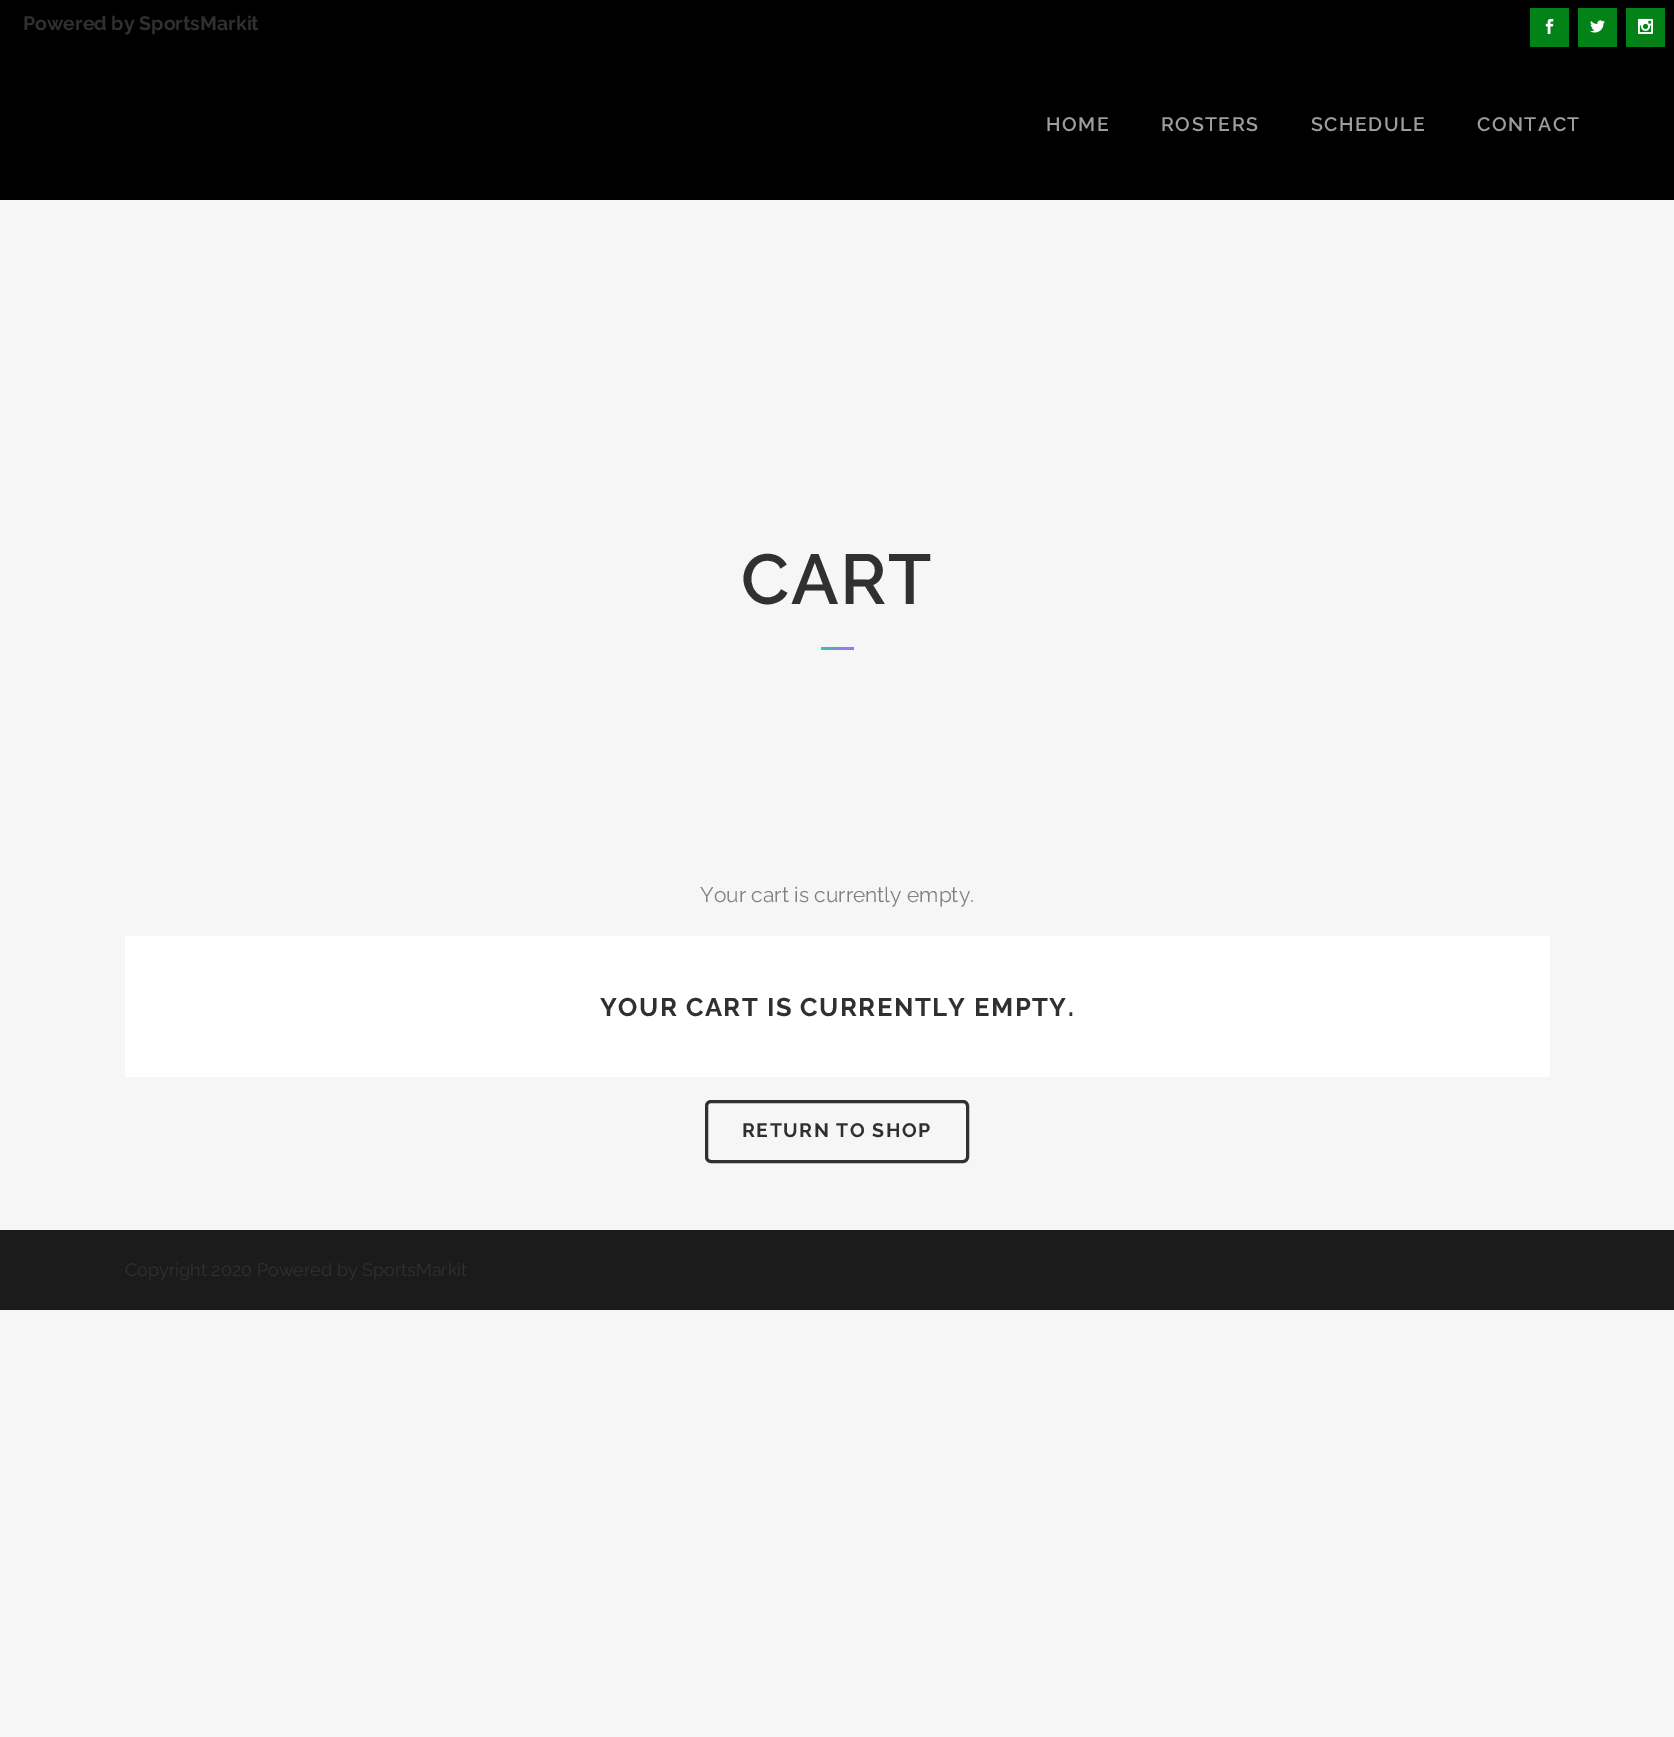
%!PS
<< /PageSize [1674 1737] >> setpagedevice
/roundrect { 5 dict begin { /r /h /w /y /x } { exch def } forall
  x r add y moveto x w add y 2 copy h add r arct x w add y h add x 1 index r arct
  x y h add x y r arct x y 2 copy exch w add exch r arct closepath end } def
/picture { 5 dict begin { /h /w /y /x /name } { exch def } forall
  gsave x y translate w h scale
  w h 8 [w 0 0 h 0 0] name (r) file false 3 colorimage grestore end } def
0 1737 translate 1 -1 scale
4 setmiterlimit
0.965 setgray
0 0 1674 1737 rectfill
0 setgray
0 0 1674 200 rectfill
/Raleway-Bold [19.5 0 0 -19.5 0 0] selectfont
0.188 setgray
23 30 moveto (Powered by SportsMarkit) show
0.012 0.514 0.09 setrgbcolor
1530 8 39 39 1.5 roundrect fill
(img1.rgb) 1545 18 9 16 picture
1578 8 39 39 1.5 roundrect fill
(img2.rgb) 1590 20 15 13 picture
1626 8 39 39 1.5 roundrect fill
(img3.rgb) 1638 18 15 16 picture
/Raleway-SemiBold [19.5 0 0 -19.5 0 0] selectfont
0.616 setgray
1046 131 moveto 1.5 0 (HOME) ashow
1161 131 moveto 1.5 0 (ROSTERS) ashow
1311 131 moveto 1.5 0 (SCHEDULE) ashow
1477 131 moveto 1.5 0 (CONTACT) ashow
/Raleway-SemiBold [70.5 0 0 -70.5 0 0] selectfont
0.188 setgray
741 604 moveto 1.5 0 (CART) ashow
gsave newpath 821 647 moveto 854 647 lineto 854 650 lineto 821 650 lineto closepath clip newpath
<< /ShadingType 2 /ColorSpace /DeviceRGB /Coords [821 648 854 648] /Extend [true true] /Function << /FunctionType 2 /Domain [0 1] /C0 [0.192 0.784 0.635] /C1 [0.682 0.4 0.992] /N 1 >> >> shfill grestore
/Raleway-Regular [21 0 0 -21 0 0] selectfont
0.506 setgray
700 902 moveto (Your cart is currently empty.) show
1 setgray
125 936 1425 141 rectfill
/Raleway-Bold [25.5 0 0 -25.5 0 0] selectfont
0.188 setgray
600 1016 moveto 1.5 0 (YOUR CART IS CURRENTLY EMPTY.) ashow
3 setlinewidth
706.5 1101.5 261 60 4.5 roundrect stroke
/Raleway-Bold [19.5 0 0 -19.5 0 0] selectfont
742 1137 moveto 1.5 0 (RETURN TO SHOP) ashow
0.106 setgray
0 1230 1674 80 rectfill
/Raleway-Regular [18 0 0 -18 0 0] selectfont
0.188 setgray
125 1276 moveto (Copyright 2020 Powered by SportsMarkit) show
showpage
